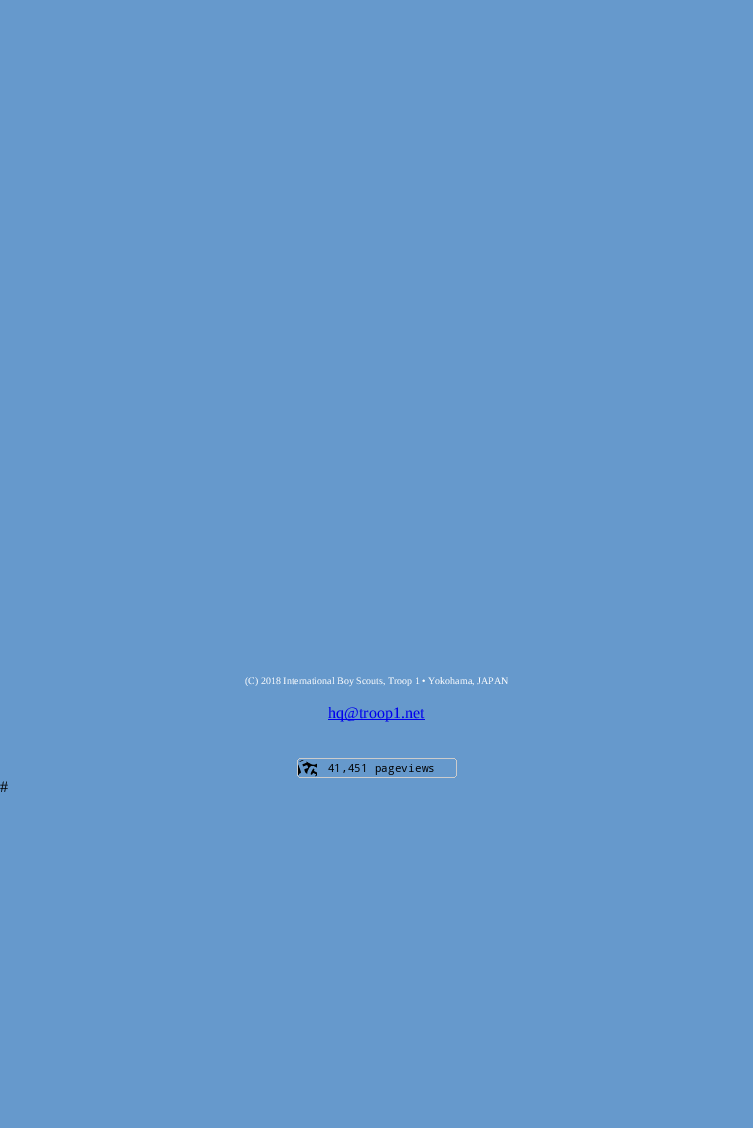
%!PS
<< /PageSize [753 1128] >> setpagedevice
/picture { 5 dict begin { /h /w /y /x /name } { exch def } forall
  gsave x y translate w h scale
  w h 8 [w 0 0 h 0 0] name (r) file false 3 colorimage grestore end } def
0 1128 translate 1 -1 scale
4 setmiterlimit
0.4 0.6 0.8 setrgbcolor
0 0 753 1128 rectfill
/LiberationSerif-Regular [10 0 0 -10 0 0] selectfont
1 setgray
245 684 moveto (\(C\) 2018 International Boy Scouts, Troop 1 • Yokohama, JAPAN) show
0 0 0.933 setrgbcolor
328 719 97 1 rectfill
/LiberationSerif-Regular [16 0 0 -16 0 0] selectfont
328 718 moveto (hq@troop1.net) show
(img1.rgb) 297 758 160 20 picture
0 setgray
0 792 moveto (#) show
showpage
